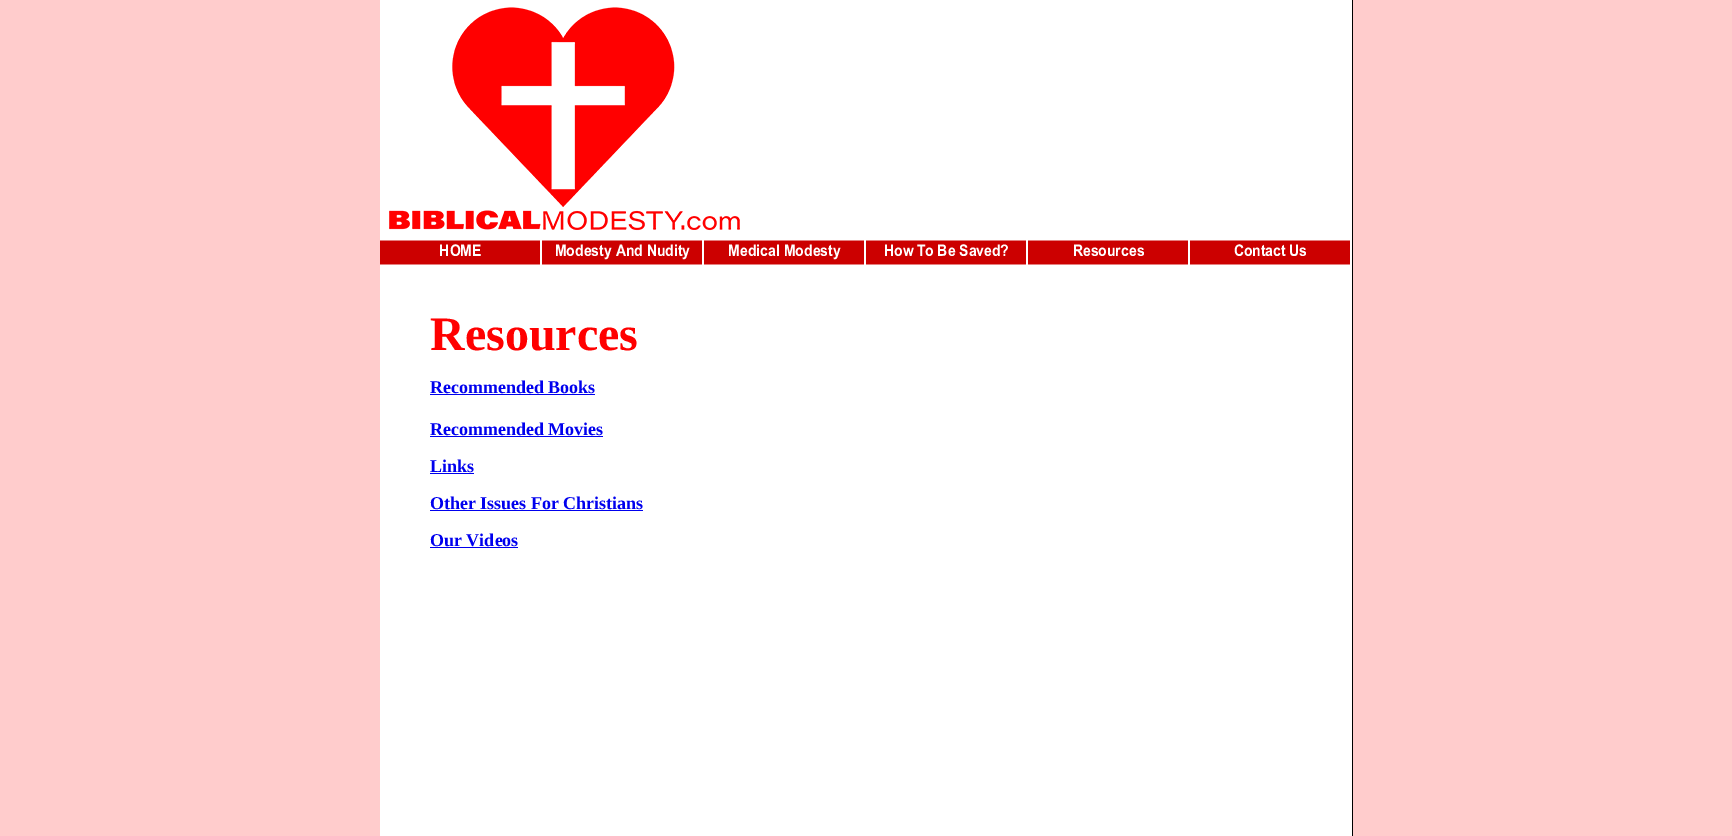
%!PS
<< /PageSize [1732 836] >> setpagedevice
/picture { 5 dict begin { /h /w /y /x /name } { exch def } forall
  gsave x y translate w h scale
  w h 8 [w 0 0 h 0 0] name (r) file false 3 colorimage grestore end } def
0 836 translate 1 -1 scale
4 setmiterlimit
1 0.8 0.8 setrgbcolor
0 0 1732 836 rectfill
1 setgray
380 0 972 836 rectfill
0 setgray
1352 0 1 836 rectfill
(img1.rgb) 389 7 351 224 picture
(img2.rgb) 380 240 160 24 picture
(img3.rgb) 542 240 160 24 picture
(img4.rgb) 704 240 160 24 picture
(img5.rgb) 866 240 160 24 picture
(img6.rgb) 1028 240 160 24 picture
(img7.rgb) 1190 240 160 24 picture
0.902 0.502 0.502 setrgbcolor
380 264 160 1 rectfill
542 264 160 1 rectfill
704 264 160 1 rectfill
866 264 160 1 rectfill
1028 264 160 1 rectfill
1190 264 160 1 rectfill
/LiberationSerif-Bold [48 0 0 -48 0 0] selectfont
1 0 0 setrgbcolor
430 350 moveto (Resources) show
/LiberationSerif-Bold [18 0 0 -18 0 0] selectfont
0 0 0.933 setrgbcolor
430 393 moveto (Recommended Books) show
430 394 165 1 rectfill
430 435 moveto (Recommended Movies) show
430 436 173 1 rectfill
430 472 moveto (Links) show
430 473 44 1 rectfill
430 509 moveto (Other Issues For Christians) show
430 510 213 1 rectfill
430 546 moveto (Our Videos) show
430 547 88 1 rectfill
showpage
